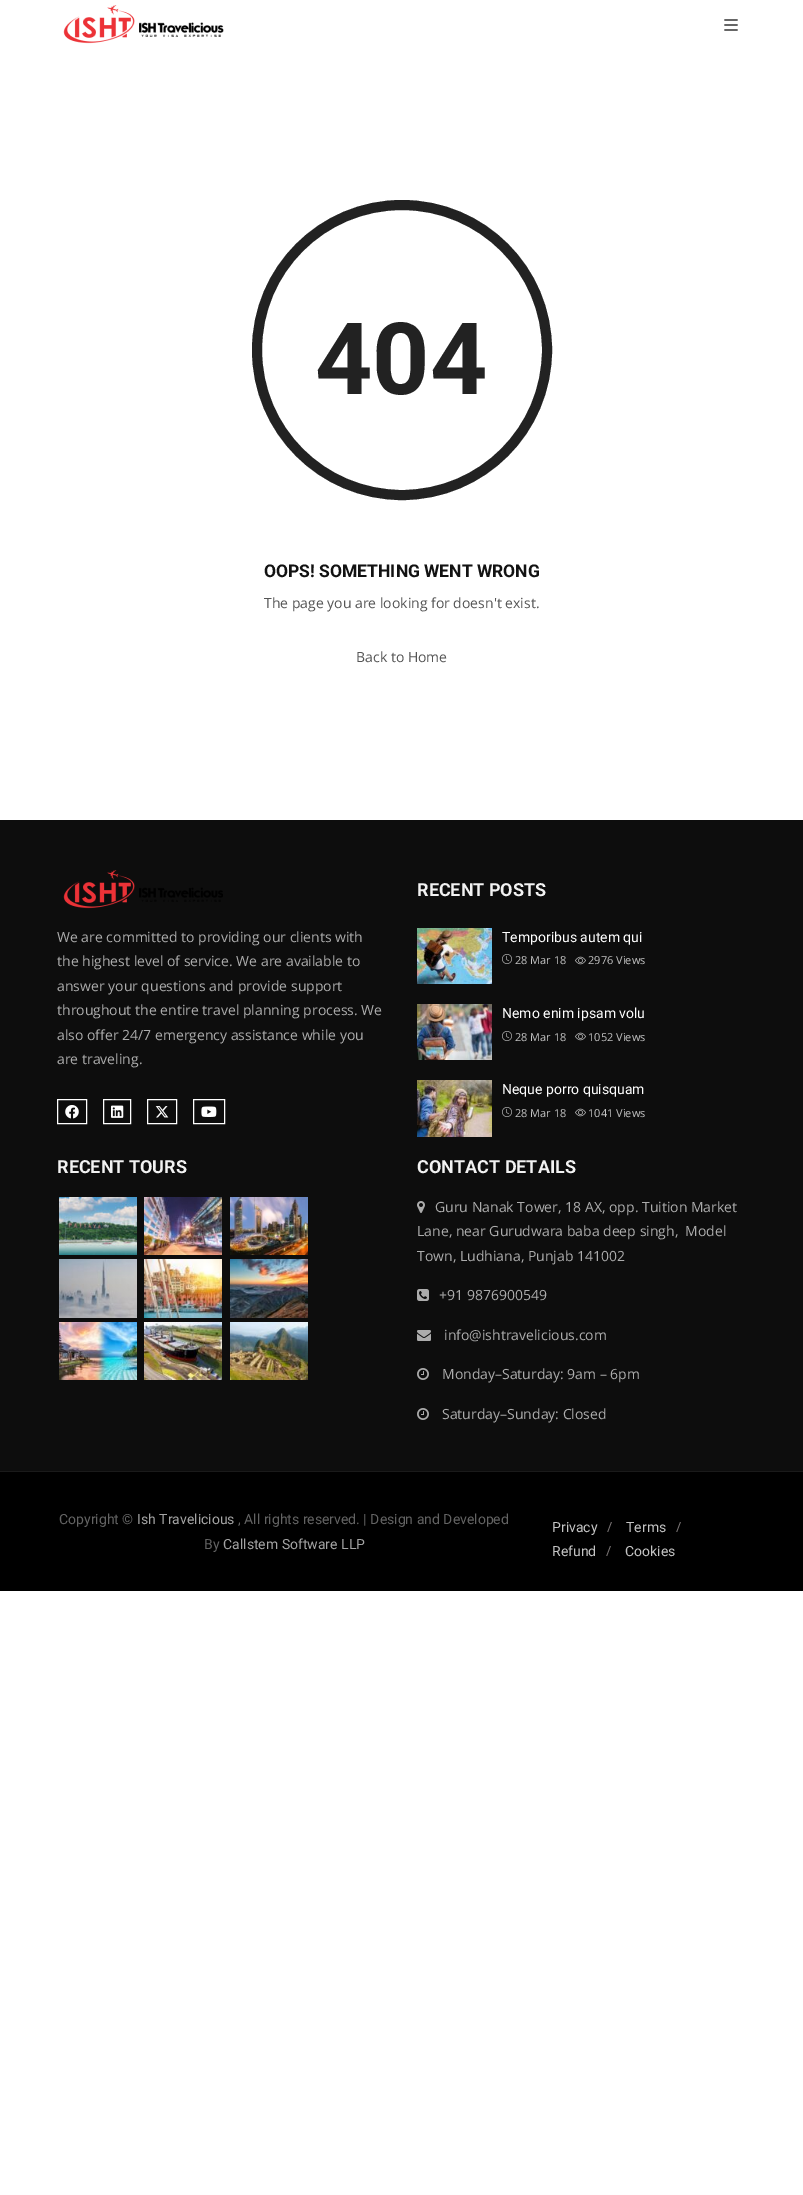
%!PS
<< /PageSize [803 2195] >> setpagedevice
/picture { 5 dict begin { /h /w /y /x /name } { exch def } forall
  gsave x y translate w h scale
  w h 8 [w 0 0 h 0 0] name (r) file false 3 colorimage grestore end } def
0 2195 translate 1 -1 scale
4 setmiterlimit
1 setgray
0 0 803 2195 rectfill
(img1.rgb) 63 5 161 39 picture
(img2.rgb) 724 19 14 12 picture
0.133 setgray
10 setlinewidth
newpath 402 350 145 0 360 arc closepath stroke
/Roboto-Bold [100 0 0 -100 0 0] selectfont
315 394 moveto (404) show
/Roboto-Bold [17.5 0 0 -17.5 0 0] selectfont
0.071 setgray
264 577 moveto (OOPS! SOMETHING WENT WRONG) show
/OpenSans-Regular [14 0 0 -14 0 0] selectfont
0.333 setgray
264 608 moveto (The page you are looking for doesn't exist.) show
356 662 moveto (Back to Home) show
0.051 setgray
0 820 803 651 rectfill
(img3.rgb) 63 870 160 39 picture
0.675 setgray
57 942 moveto (We are committed to providing our clients with) show
57 966 moveto (the highest level of service. We are available to) show
57 991 moveto (answer your questions and provide support) show
57 1015 moveto (throughout the entire travel planning process. We) show
57 1040 moveto (also offer 24/7 emergency assistance while you) show
57 1064 moveto (are traveling.) show
1 setgray
1 setlinewidth
57.5 1099.5 29 24 rectstroke
(img4.rgb) 65 1105 14 14 picture
103.5 1099.5 27 24 rectstroke
(img5.rgb) 111 1105 13 13 picture
147.5 1099.5 29 24 rectstroke
(img6.rgb) 155 1106 14 12 picture
193.5 1099.5 31 24 rectstroke
(img7.rgb) 201 1106 16 11 picture
/Roboto-Bold [18 0 0 -18 0 0] selectfont
0.949 setgray
417 896 moveto (RECENT POSTS) show
(img8.rgb) 417 928 75 56 picture
/Roboto-Regular [14 0 0 -14 0 0] selectfont
1 setgray
502 942 moveto (Temporibus autem qui) show
(img9.rgb) 502 954 10 10 picture
/OpenSans-Regular [11 0 0 -11 0 0] selectfont
0.769 setgray
515 964 moveto (28 Mar 18) show
(img10.rgb) 575 956 11 9 picture
588 964 moveto (2976 Views) show
(img11.rgb) 417 1004 75 56 picture
/Roboto-Regular [14 0 0 -14 0 0] selectfont
1 setgray
502 1018 moveto (Nemo enim ipsam volu) show
(img9.rgb) 502 1031 10 10 picture
/OpenSans-Regular [11 0 0 -11 0 0] selectfont
0.769 setgray
515 1041 moveto (28 Mar 18) show
(img10.rgb) 575 1032 11 9 picture
588 1041 moveto (1052 Views) show
(img12.rgb) 417 1080 75 57 picture
/Roboto-Regular [14 0 0 -14 0 0] selectfont
1 setgray
502 1094 moveto (Neque porro quisquam) show
(img9.rgb) 502 1107 10 10 picture
/OpenSans-Regular [11 0 0 -11 0 0] selectfont
0.769 setgray
515 1117 moveto (28 Mar 18) show
(img10.rgb) 575 1108 11 9 picture
588 1117 moveto (1041 Views) show
/Roboto-Bold [18 0 0 -18 0 0] selectfont
0.949 setgray
57 1173 moveto (RECENT TOURS) show
(img13.rgb) 59 1197 78 58 picture
(img14.rgb) 144 1197 78 58 picture
(img15.rgb) 230 1197 78 58 picture
(img16.rgb) 59 1259 78 59 picture
(img17.rgb) 144 1259 78 59 picture
(img18.rgb) 230 1259 78 59 picture
(img19.rgb) 59 1322 78 58 picture
(img20.rgb) 144 1322 78 58 picture
(img21.rgb) 230 1322 78 58 picture
417 1173 moveto (CONTACT DETAILS) show
(img22.rgb) 417 1201 8 12 picture
/OpenSans-Regular [14 0 0 -14 0 0] selectfont
0.675 setgray
435 1212 moveto (Guru Nanak Tower, 18 AX, opp. Tuition Market) show
417 1236 moveto (Lane, near Gurudwara baba deep singh,  Model) show
417 1261 moveto (Town, Ludhiana, Punjab 141002) show
(img23.rgb) 417 1289 12 12 picture
439 1300 moveto (+91 9876900549) show
(img24.rgb) 417 1330 14 11 picture
444 1340 moveto (info@ishtravelicious.com) show
(img25.rgb) 417 1368 12 12 picture
442 1379 moveto (Monday–Saturday: 9am – 6pm) show
(img25.rgb) 417 1408 12 12 picture
442 1419 moveto (Saturday–Sunday: Closed) show
0 setgray
0 1472 803 119 rectfill
0.102 setgray
0 1471 803 1 rectfill
/Roboto-Regular [14 0 0 -14 0 0] selectfont
0.388 setgray
59 1524 moveto (Copyright ©) show
0.643 setgray
137 1524 moveto (Ish Travelicious) show
0.388 setgray
238 1524 moveto (, All rights reserved. | Design and Developed) show
204 1549 moveto (By) show
0.643 setgray
223 1549 moveto (Callstem Software LLP) show
0.769 setgray
552 1532 moveto (Privacy) show
/OpenSans-Regular [14 0 0 -14 0 0] selectfont
0.467 0.447 0.447 setrgbcolor
607 1532 moveto (/) show
/Roboto-Regular [14 0 0 -14 0 0] selectfont
0.769 setgray
626 1532 moveto (Terms) show
/OpenSans-Regular [14 0 0 -14 0 0] selectfont
0.467 0.447 0.447 setrgbcolor
676 1532 moveto (/) show
/Roboto-Regular [14 0 0 -14 0 0] selectfont
0.769 setgray
552 1556 moveto (Refund) show
/OpenSans-Regular [14 0 0 -14 0 0] selectfont
0.467 0.447 0.447 setrgbcolor
606 1556 moveto (/) show
/Roboto-Regular [14 0 0 -14 0 0] selectfont
0.769 setgray
625 1556 moveto (Cookies) show
showpage
